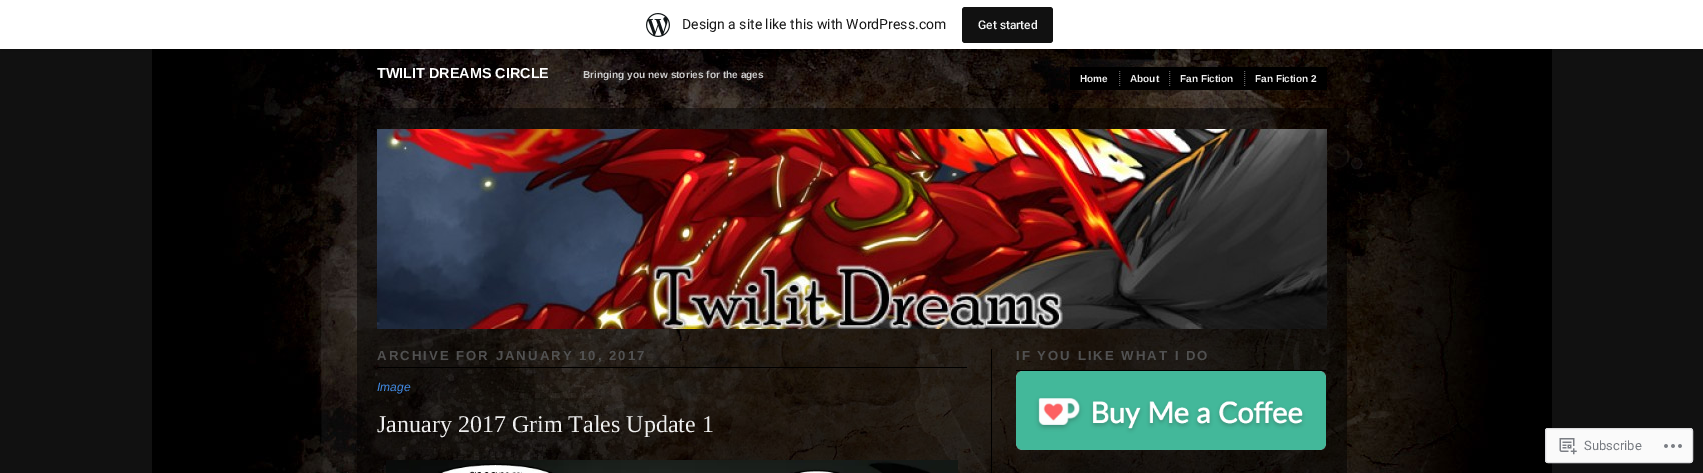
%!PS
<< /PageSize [1703 473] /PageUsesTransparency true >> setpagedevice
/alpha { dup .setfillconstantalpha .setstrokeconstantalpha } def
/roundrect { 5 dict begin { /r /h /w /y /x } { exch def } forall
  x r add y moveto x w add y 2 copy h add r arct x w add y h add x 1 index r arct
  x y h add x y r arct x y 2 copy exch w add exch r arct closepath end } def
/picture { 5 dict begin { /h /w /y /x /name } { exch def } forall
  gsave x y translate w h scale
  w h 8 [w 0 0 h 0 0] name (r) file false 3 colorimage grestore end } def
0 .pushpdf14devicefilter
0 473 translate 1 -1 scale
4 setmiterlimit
0.067 setgray
0 0 1703 473 rectfill
(img1.rgb) 152 49 1400 424 picture
0.5 alpha
0 setgray
357 108 990 365 rectfill
0.08 alpha
newpath 1 49 moveto 1 52 lineto 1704 52 lineto 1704 3 lineto 1703 3 lineto 1703 49 lineto closepath fill
1 alpha
1 setgray
0 0 1703 49 rectfill
(img2.rgb) 646 13 24 24 picture
/Roboto-Regular [14 0 0 -14 0 0] selectfont
0.09 setgray
682 29 moveto (Design a site like this with WordPress.com) show
0.067 setgray
962 7 91 36 3 roundrect fill
/Roboto-Medium [12 0 0 -12 0 0] selectfont
0.965 0.969 0.969 setrgbcolor
978 29 moveto (Get started) show
(img3.rgb) 377 129 950 200 picture
0 setgray
991 349 1 124 rectfill
377 367 590 1 rectfill
/LiberationSans-Bold [13.2 0 0 -13.2 0 0] selectfont
0.318 setgray
377 360 moveto 2 0 (ARCHIVE FOR JANUARY 10, 2017) ashow
/LiberationSans-Italic [12 0 0 -12 0 0] selectfont
0.259 0.549 0.906 setrgbcolor
377 391 moveto (Image) show
/LiberationSerif-Regular [24 0 0 -24 0 0] selectfont
0.933 setgray
377 432 moveto (January 2017 Grim Tales Update 1) show
(img4.rgb) 386 460 572 13 picture
0 setgray
1016 370 310 1 rectfill
/LiberationSans-Bold [13.2 0 0 -13.2 0 0] selectfont
0.318 setgray
1016 360 moveto 2 0 (IF YOU LIKE WHAT I DO) ashow
(img5.rgb) 1016 371 310 79 picture
0.98 alpha
1 setgray
1545 428 148 35 3 roundrect fill
0.863 0.863 0.871 setrgbcolor
1545.5 428.5 147 34 2.5 roundrect stroke
1 alpha
(img6.rgb) 1559 438 18 17 picture
/Roboto-Regular [13 0 0 -13 0 0] selectfont
0.463 0.478 0.502 setrgbcolor
1584 450 moveto (Subscribe) show
(img7.rgb) 1664 444 18 4 picture
/LiberationSans-Bold [14.4 0 0 -14.4 0 0] selectfont
1 setgray
377 78 moveto (TWILIT DREAMS CIRCLE) show
/LiberationSans-Bold [10.1 0 0 -10.1 0 0] selectfont
0.8 setgray
583 78 moveto (Bringing you new stories for the ages) show
0 setgray
1070 67 257 23 rectfill
0.4 setgray
[1 1] 0 setdash
newpath 1119.5 71 moveto 1119.5 86 lineto stroke
/LiberationSans-Bold [10 0 0 -10 0 0] selectfont
0.933 setgray
1080 82 moveto (Home) show
0.4 setgray
newpath 1169.5 71 moveto 1169.5 86 lineto stroke
0.933 setgray
1130 82 moveto (About) show
0.4 setgray
newpath 1244.5 71 moveto 1244.5 86 lineto stroke
0.933 setgray
1180 82 moveto (Fan Fiction) show
1255 82 moveto (Fan Fiction 2) show
.poppdf14devicefilter showpage
